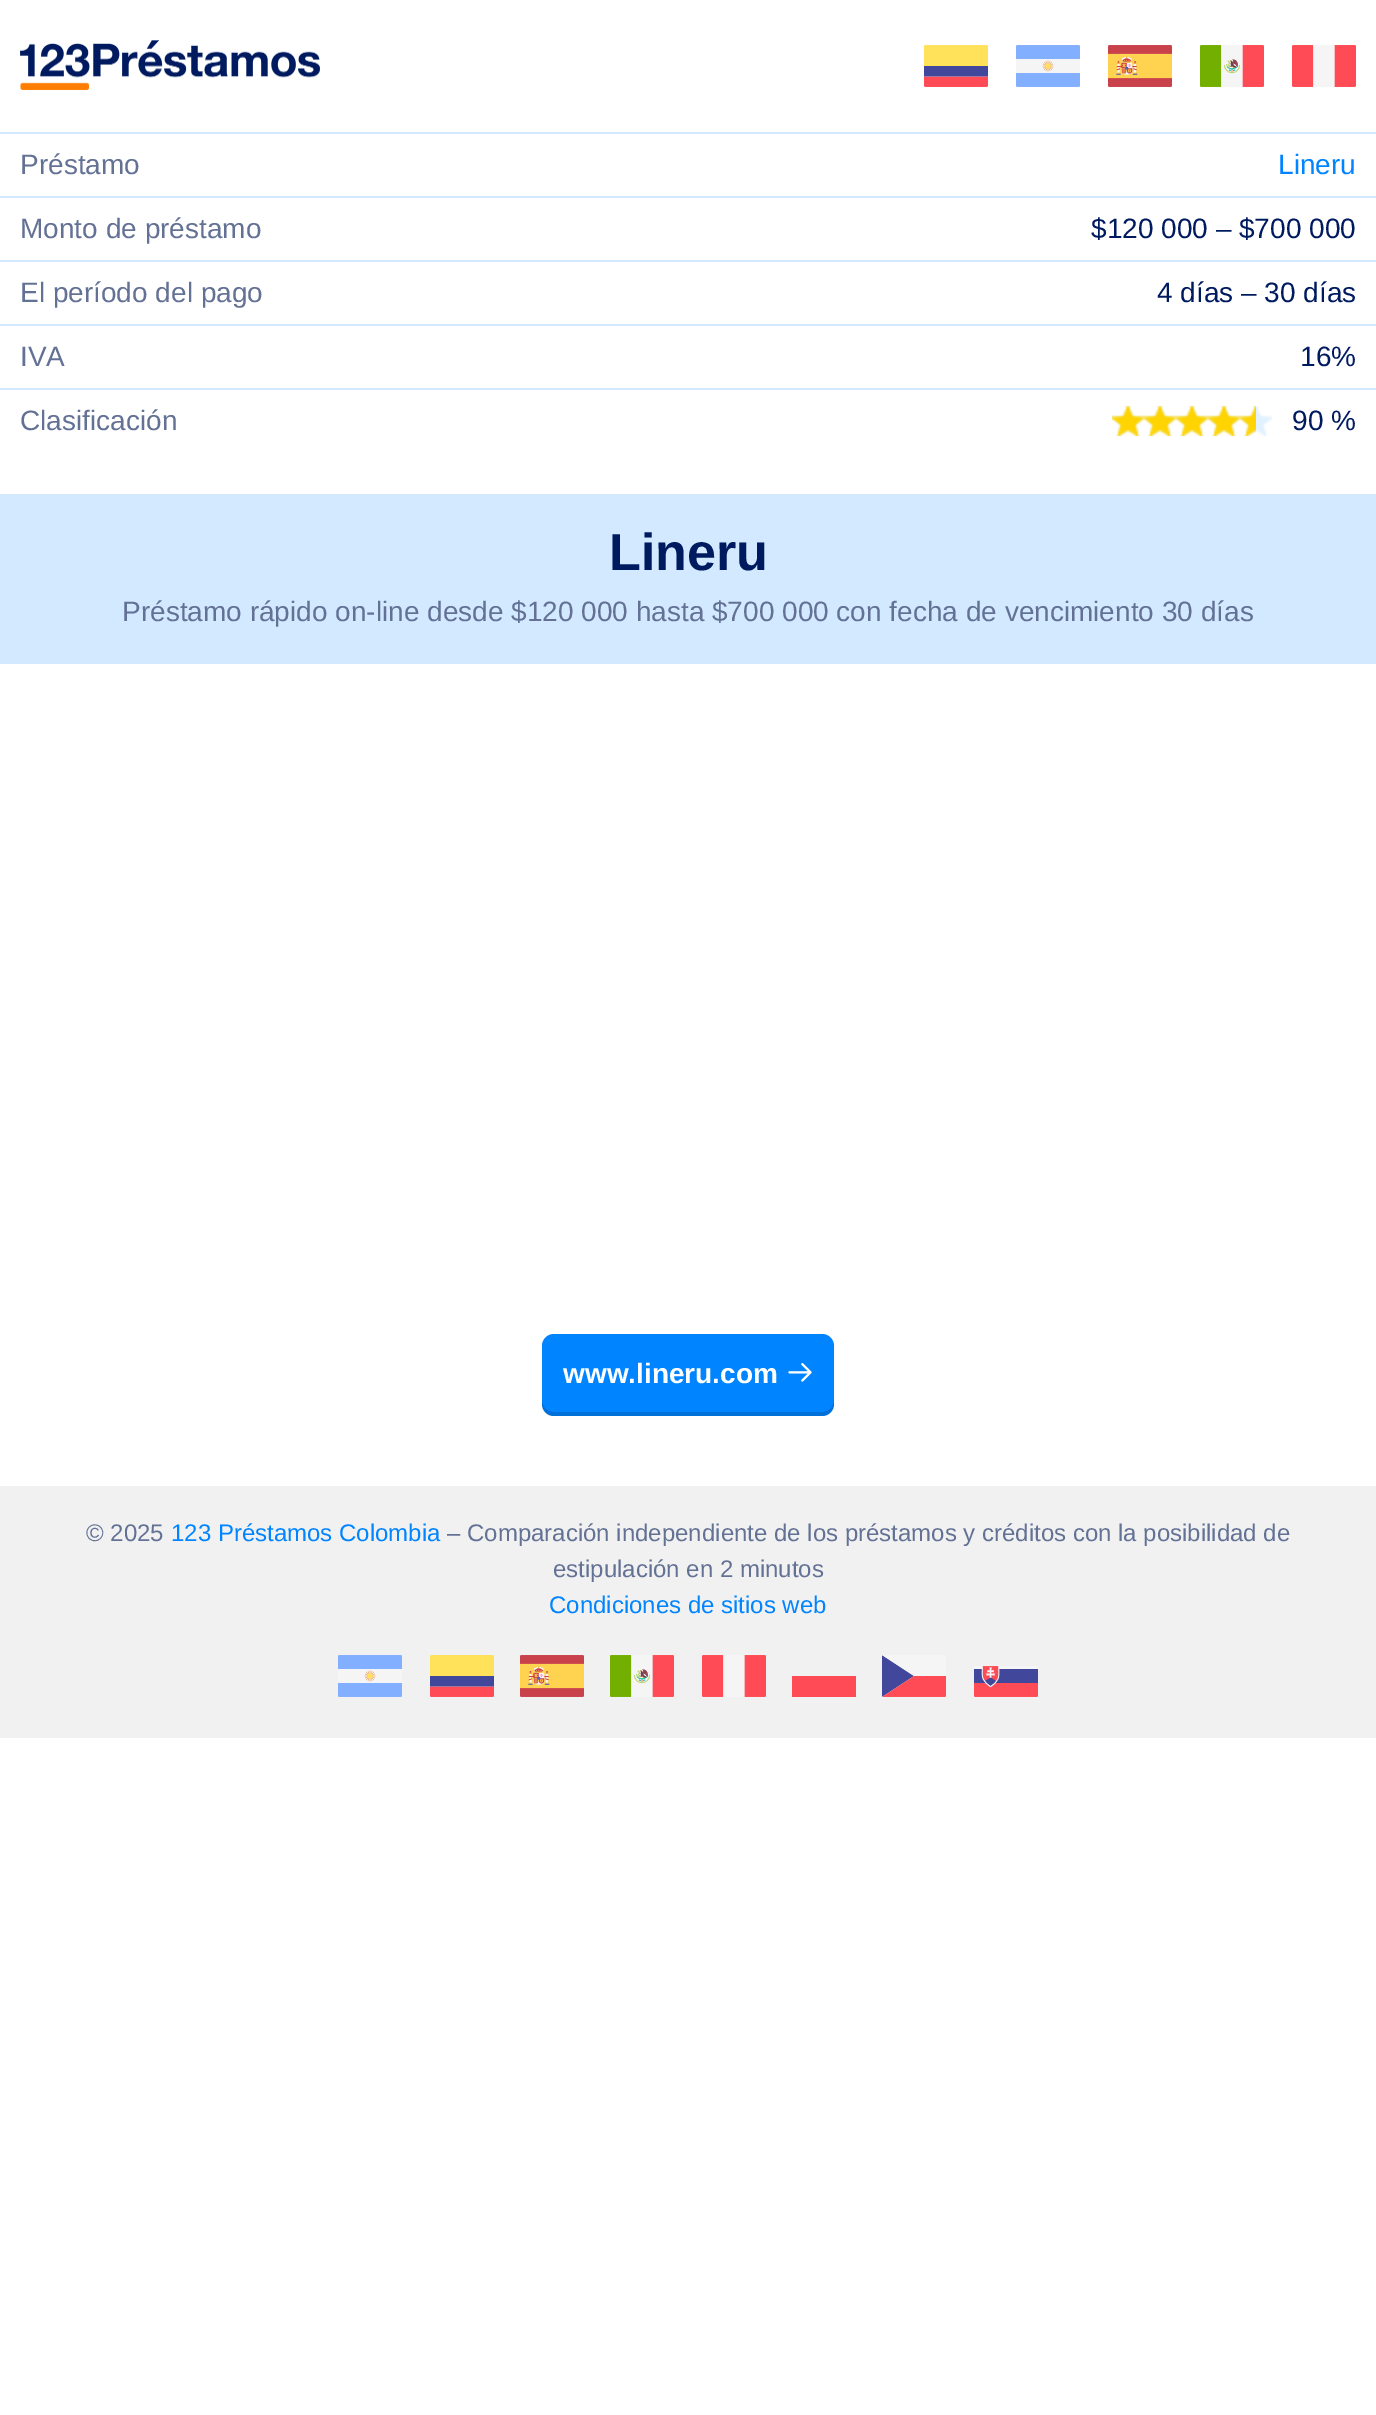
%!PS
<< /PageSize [1376 2415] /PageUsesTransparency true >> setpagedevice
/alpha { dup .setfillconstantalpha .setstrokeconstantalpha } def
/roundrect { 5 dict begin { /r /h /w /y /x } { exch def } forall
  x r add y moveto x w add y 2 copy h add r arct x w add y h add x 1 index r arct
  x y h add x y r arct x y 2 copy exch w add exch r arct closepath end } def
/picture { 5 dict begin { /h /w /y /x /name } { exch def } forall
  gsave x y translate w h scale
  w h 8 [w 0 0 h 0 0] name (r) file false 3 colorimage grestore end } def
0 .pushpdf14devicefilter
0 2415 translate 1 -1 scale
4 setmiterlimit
1 setgray
0 0 1376 2415 rectfill
(img1.rgb) 20 40 300 50 picture
(img2.rgb) 924 45 64 42 picture
(img3.rgb) 1016 45 64 42 picture
(img4.rgb) 1108 45 64 42 picture
(img5.rgb) 1200 45 64 42 picture
(img6.rgb) 1292 45 64 42 picture
0.824 0.914 1 setrgbcolor
0 132 1376 2 rectfill
/LiberationSans-Regular [28 0 0 -28 0 0] selectfont
0.388 0.443 0.584 setrgbcolor
20 174 moveto (Préstamo) show
0 0.518 1 setrgbcolor
1278 174 moveto (Lineru) show
0.824 0.914 1 setrgbcolor
0 196 1376 2 rectfill
0.388 0.443 0.584 setrgbcolor
20 238 moveto (Monto de préstamo) show
0 0.102 0.373 setrgbcolor
1091 238 moveto ($120 000 – $700 000) show
0.824 0.914 1 setrgbcolor
0 260 1376 2 rectfill
0.388 0.443 0.584 setrgbcolor
20 302 moveto (El período del pago) show
0 0.102 0.373 setrgbcolor
1157 302 moveto (4 días – 30 días) show
0.824 0.914 1 setrgbcolor
0 324 1376 2 rectfill
0.388 0.443 0.584 setrgbcolor
20 366 moveto (IVA) show
0 0.102 0.373 setrgbcolor
1300 366 moveto (16%) show
0.824 0.914 1 setrgbcolor
0 388 1376 2 rectfill
0.388 0.443 0.584 setrgbcolor
20 430 moveto (Clasificación) show
(img7.rgb) 1112 406 160 30 picture
(img8.rgb) 1112 406 144 30 picture
0 0.102 0.373 setrgbcolor
1292 430 moveto (90 %) show
0.824 0.914 1 setrgbcolor
0 494 1376 170 rectfill
/LiberationSans-Bold [52 0 0 -52 0 0] selectfont
0 0.102 0.373 setrgbcolor
609 570 moveto (Lineru) show
/LiberationSans-Regular [28 0 0 -28 0 0] selectfont
0.388 0.443 0.584 setrgbcolor
122 621 moveto (Préstamo rápido on-line desde $120 000 hasta $700 000 con fecha de vencimiento 30 días) show
0 0.518 1 setrgbcolor
542 1334 292 82 12 roundrect fill
0.15 alpha
0 setgray
newpath 542 1400 moveto 542 1404 lineto 542 1411 547 1416 554 1416 curveto 822 1416 lineto 829 1416 834 1411 834 1404 curveto 834 1400 lineto 834 1407 829 1412 822 1412 curveto 554 1412 lineto 547 1412 542 1407 542 1400 curveto closepath fill
/LiberationSans-Bold [28 0 0 -28 0 0] selectfont
1 alpha
1 setgray
563 1383 moveto (www.lineru.com) show
(img9.rgb) 788 1363 24 19 picture
0.945 setgray
0 1486 1376 252 rectfill
/LiberationSans-Regular [24 0 0 -24 0 0] selectfont
0.388 0.443 0.584 setrgbcolor
86 1541 moveto (© 2025) show
0 0.518 1 setrgbcolor
171 1541 moveto (123 Préstamos Colombia) show
0.388 0.443 0.584 setrgbcolor
447 1541 moveto (– Comparación independiente de los préstamos y créditos con la posibilidad de) show
553 1577 moveto (estipulación en 2 minutos) show
0 0.518 1 setrgbcolor
549 1613 moveto (Condiciones de sitios web) show
(img10.rgb) 338 1655 64 42 picture
(img11.rgb) 430 1655 64 42 picture
(img12.rgb) 520 1655 64 42 picture
(img13.rgb) 610 1655 64 42 picture
(img14.rgb) 702 1655 64 42 picture
1 0.294 0.333 setrgbcolor
792 1676 64 21 rectfill
(img15.rgb) 882 1655 64 42 picture
(img16.rgb) 974 1666 64 31 picture
.poppdf14devicefilter showpage
